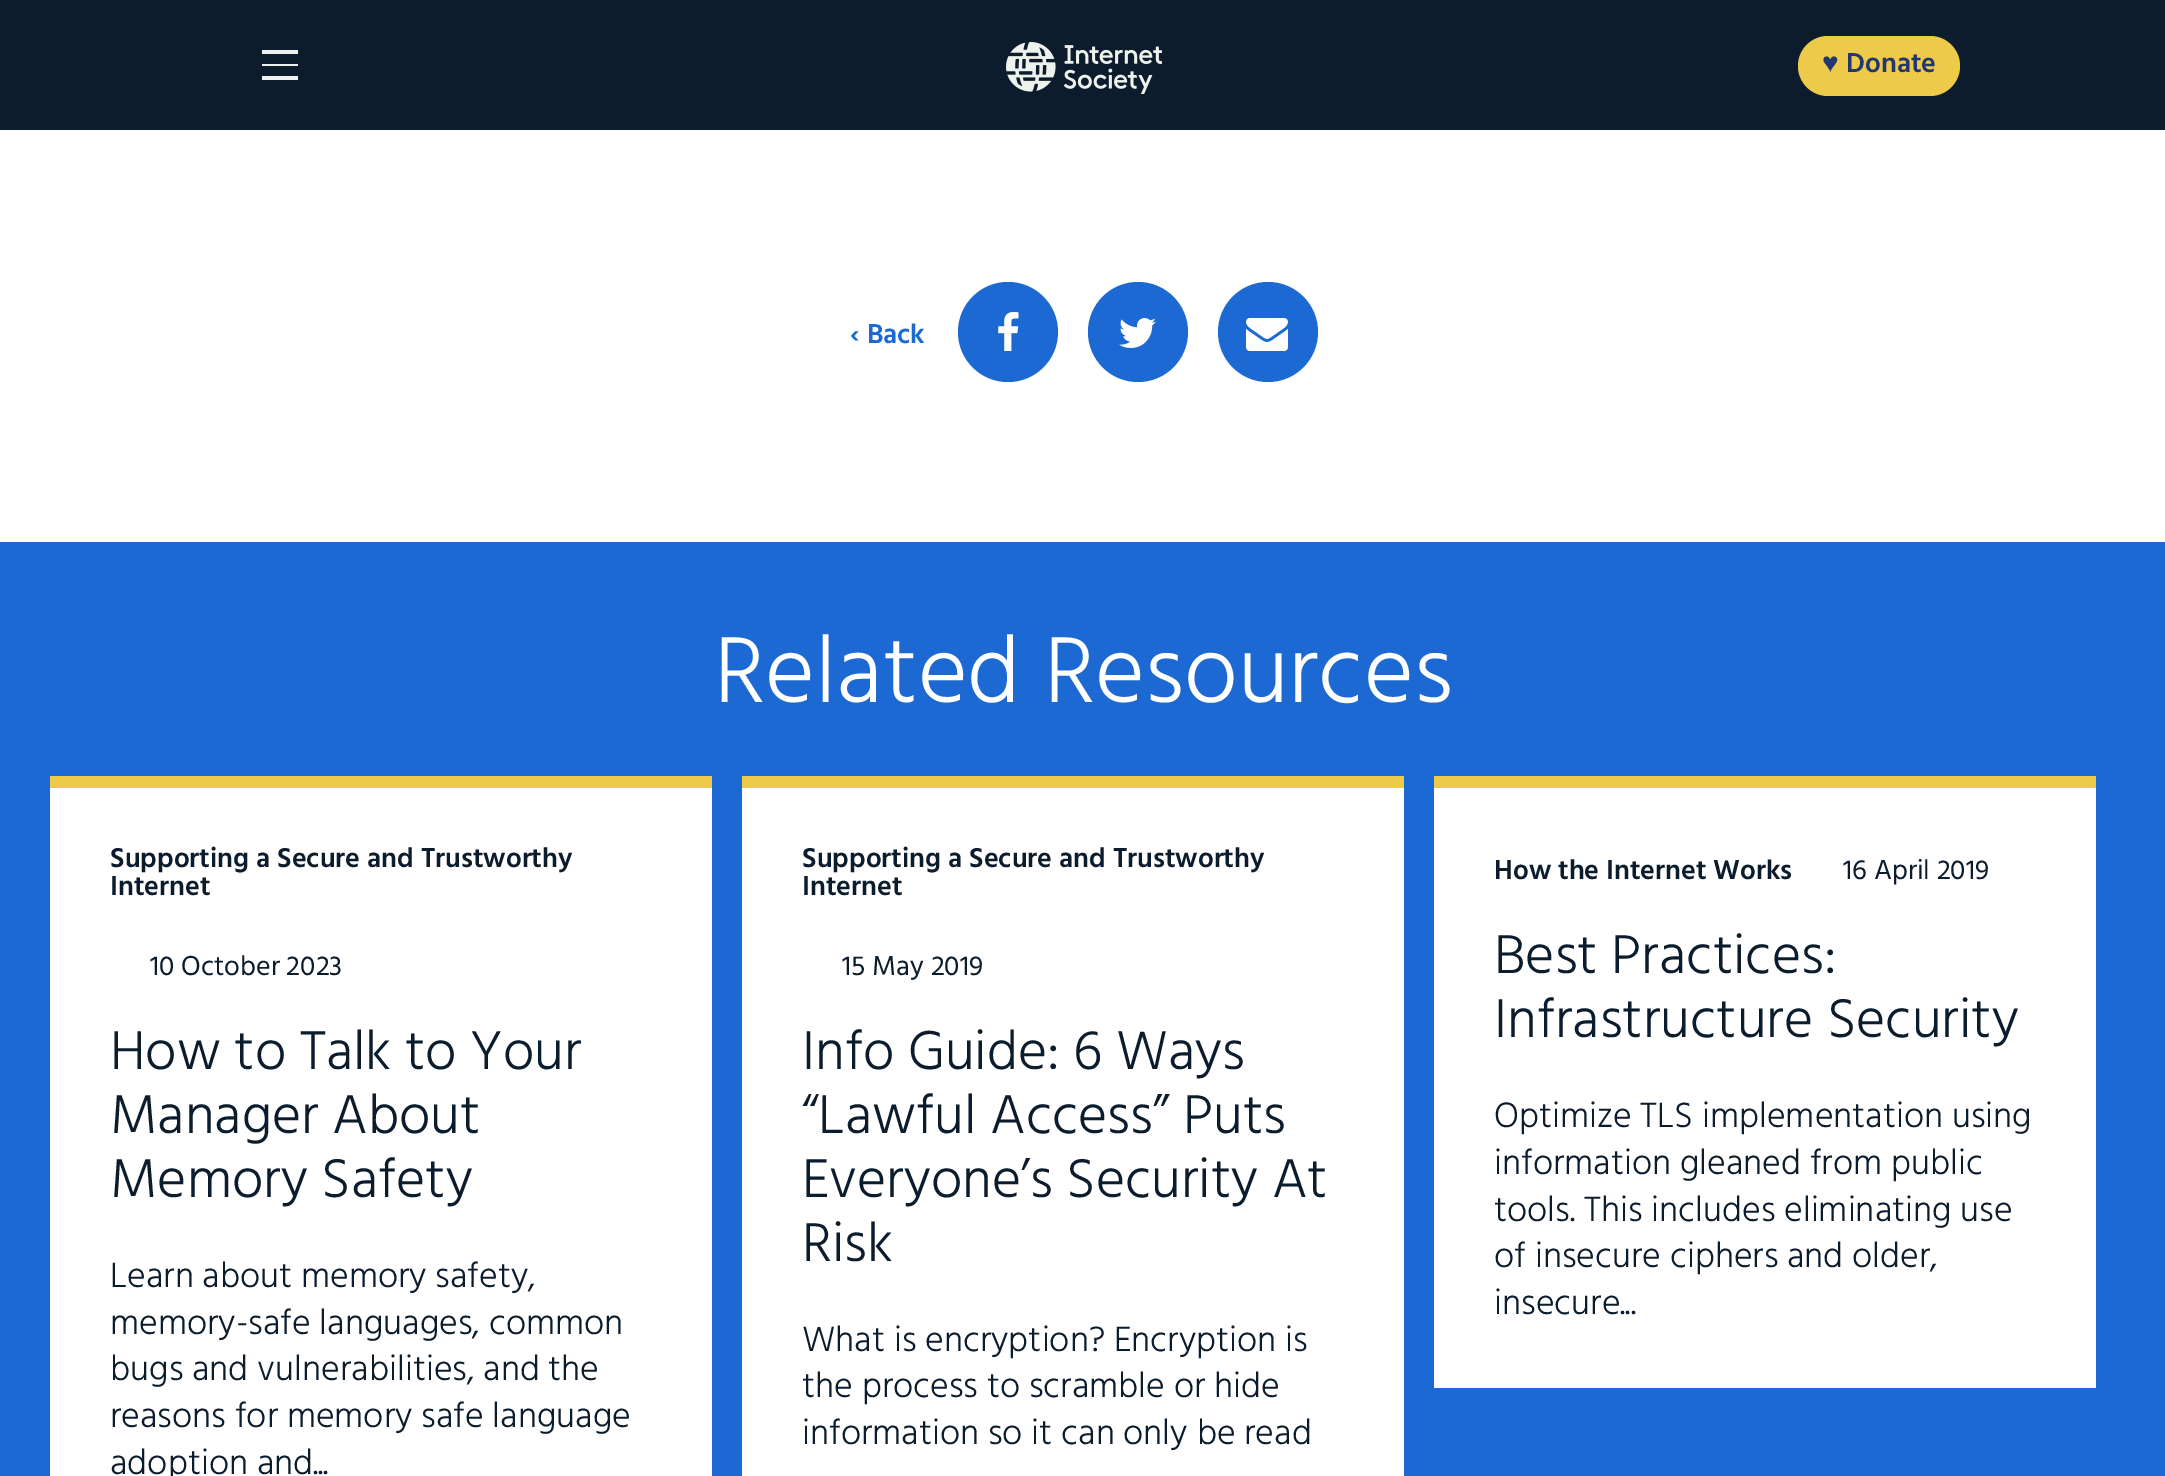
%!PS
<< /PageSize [2165 1476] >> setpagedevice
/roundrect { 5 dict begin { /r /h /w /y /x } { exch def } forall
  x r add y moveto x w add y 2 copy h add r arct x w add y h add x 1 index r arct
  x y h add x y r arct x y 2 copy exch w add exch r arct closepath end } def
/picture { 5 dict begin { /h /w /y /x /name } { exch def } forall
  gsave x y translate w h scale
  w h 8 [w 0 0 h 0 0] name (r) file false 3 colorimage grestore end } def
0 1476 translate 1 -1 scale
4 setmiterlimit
1 setgray
0 0 2165 1476 rectfill
0.047 0.11 0.173 setrgbcolor
0 0 2165 130 rectfill
0.937 0.949 0.925 setrgbcolor
262 50 36 4 rectfill
262 64 36 2 rectfill
262 76 36 4 rectfill
(img1.rgb) 1006 42 156 52 picture
0.933 0.792 0.29 setrgbcolor
1798 36 162 60 30 roundrect fill
/LiberationSans-Bold [28 0 0 -28 0 0] selectfont
0.141 0.212 0.431 setrgbcolor
1822 72 moveto (♥) show
/Hind-SemiBold [28 0 0 -28 0 0] selectfont
1846 72 moveto (Donate) show
0.114 0.412 0.827 setrgbcolor
850 343 moveto (‹ Back) show
newpath 1008 332 50 0 360 arc closepath fill
(img2.rgb) 998 312 21 39 picture
newpath 1138 332 50 0 360 arc closepath fill
(img3.rgb) 1119 318 37 30 picture
newpath 1268 332 50 0 360 arc closepath fill
(img4.rgb) 1246 318 42 33 picture
0 542 2165 934 rectfill
/Hind-Light [96 0 0 -96 0 0] selectfont
1 setgray
714 702 moveto (Related Resources) show
50 788 662 688 rectfill
0.933 0.792 0.29 setrgbcolor
50 776 662 12 rectfill
/Hind-SemiBold [28 0 0 -28 0 0] selectfont
0.043 0.11 0.176 setrgbcolor
110 867 moveto (Supporting a Secure and Trustworthy) show
110 895 moveto (Internet) show
/Hind-Regular [28 0 0 -28 0 0] selectfont
150 975 moveto (10 October 2023) show
/Hind-Light [56 0 0 -56 0 0] selectfont
110 1069 moveto (How to Talk to Your) show
110 1133 moveto (Manager About) show
110 1197 moveto (Memory Safety) show
/Hind-Light [36 0 0 -36 0 0] selectfont
110 1287 moveto (Learn about memory safety,) show
110 1334 moveto (memory-safe languages, common) show
110 1380 moveto (bugs and vulnerabilities, and the) show
110 1427 moveto (reasons for memory safe language) show
110 1474 moveto (adoption and...) show
1 setgray
742 788 662 688 rectfill
0.933 0.792 0.29 setrgbcolor
742 776 662 12 rectfill
/Hind-SemiBold [28 0 0 -28 0 0] selectfont
0.043 0.11 0.176 setrgbcolor
802 867 moveto (Supporting a Secure and Trustworthy) show
802 895 moveto (Internet) show
/Hind-Regular [28 0 0 -28 0 0] selectfont
842 975 moveto (15 May 2019) show
/Hind-Light [56 0 0 -56 0 0] selectfont
802 1069 moveto (Info Guide: 6 Ways) show
802 1133 moveto (“Lawful Access” Puts) show
802 1197 moveto (Everyone’s Security At) show
802 1261 moveto (Risk) show
/Hind-Light [36 0 0 -36 0 0] selectfont
802 1351 moveto (What is encryption? Encryption is) show
802 1397 moveto (the process to scramble or hide) show
802 1444 moveto (information so it can only be read) show
1 setgray
1434 788 662 600 rectfill
0.933 0.792 0.29 setrgbcolor
1434 776 662 12 rectfill
/Hind-SemiBold [28 0 0 -28 0 0] selectfont
0.043 0.11 0.176 setrgbcolor
1494 879 moveto (How the Internet Works) show
/Hind-Regular [28 0 0 -28 0 0] selectfont
1843 879 moveto (16 April 2019) show
/Hind-Light [56 0 0 -56 0 0] selectfont
1494 973 moveto (Best Practices:) show
1494 1037 moveto (Infrastructure Security) show
/Hind-Light [36 0 0 -36 0 0] selectfont
1494 1127 moveto (Optimize TLS implementation using) show
1494 1174 moveto (information gleaned from public) show
1494 1221 moveto (tools. This includes eliminating use) show
1494 1267 moveto (of insecure ciphers and older,) show
1494 1314 moveto (insecure...) show
showpage
